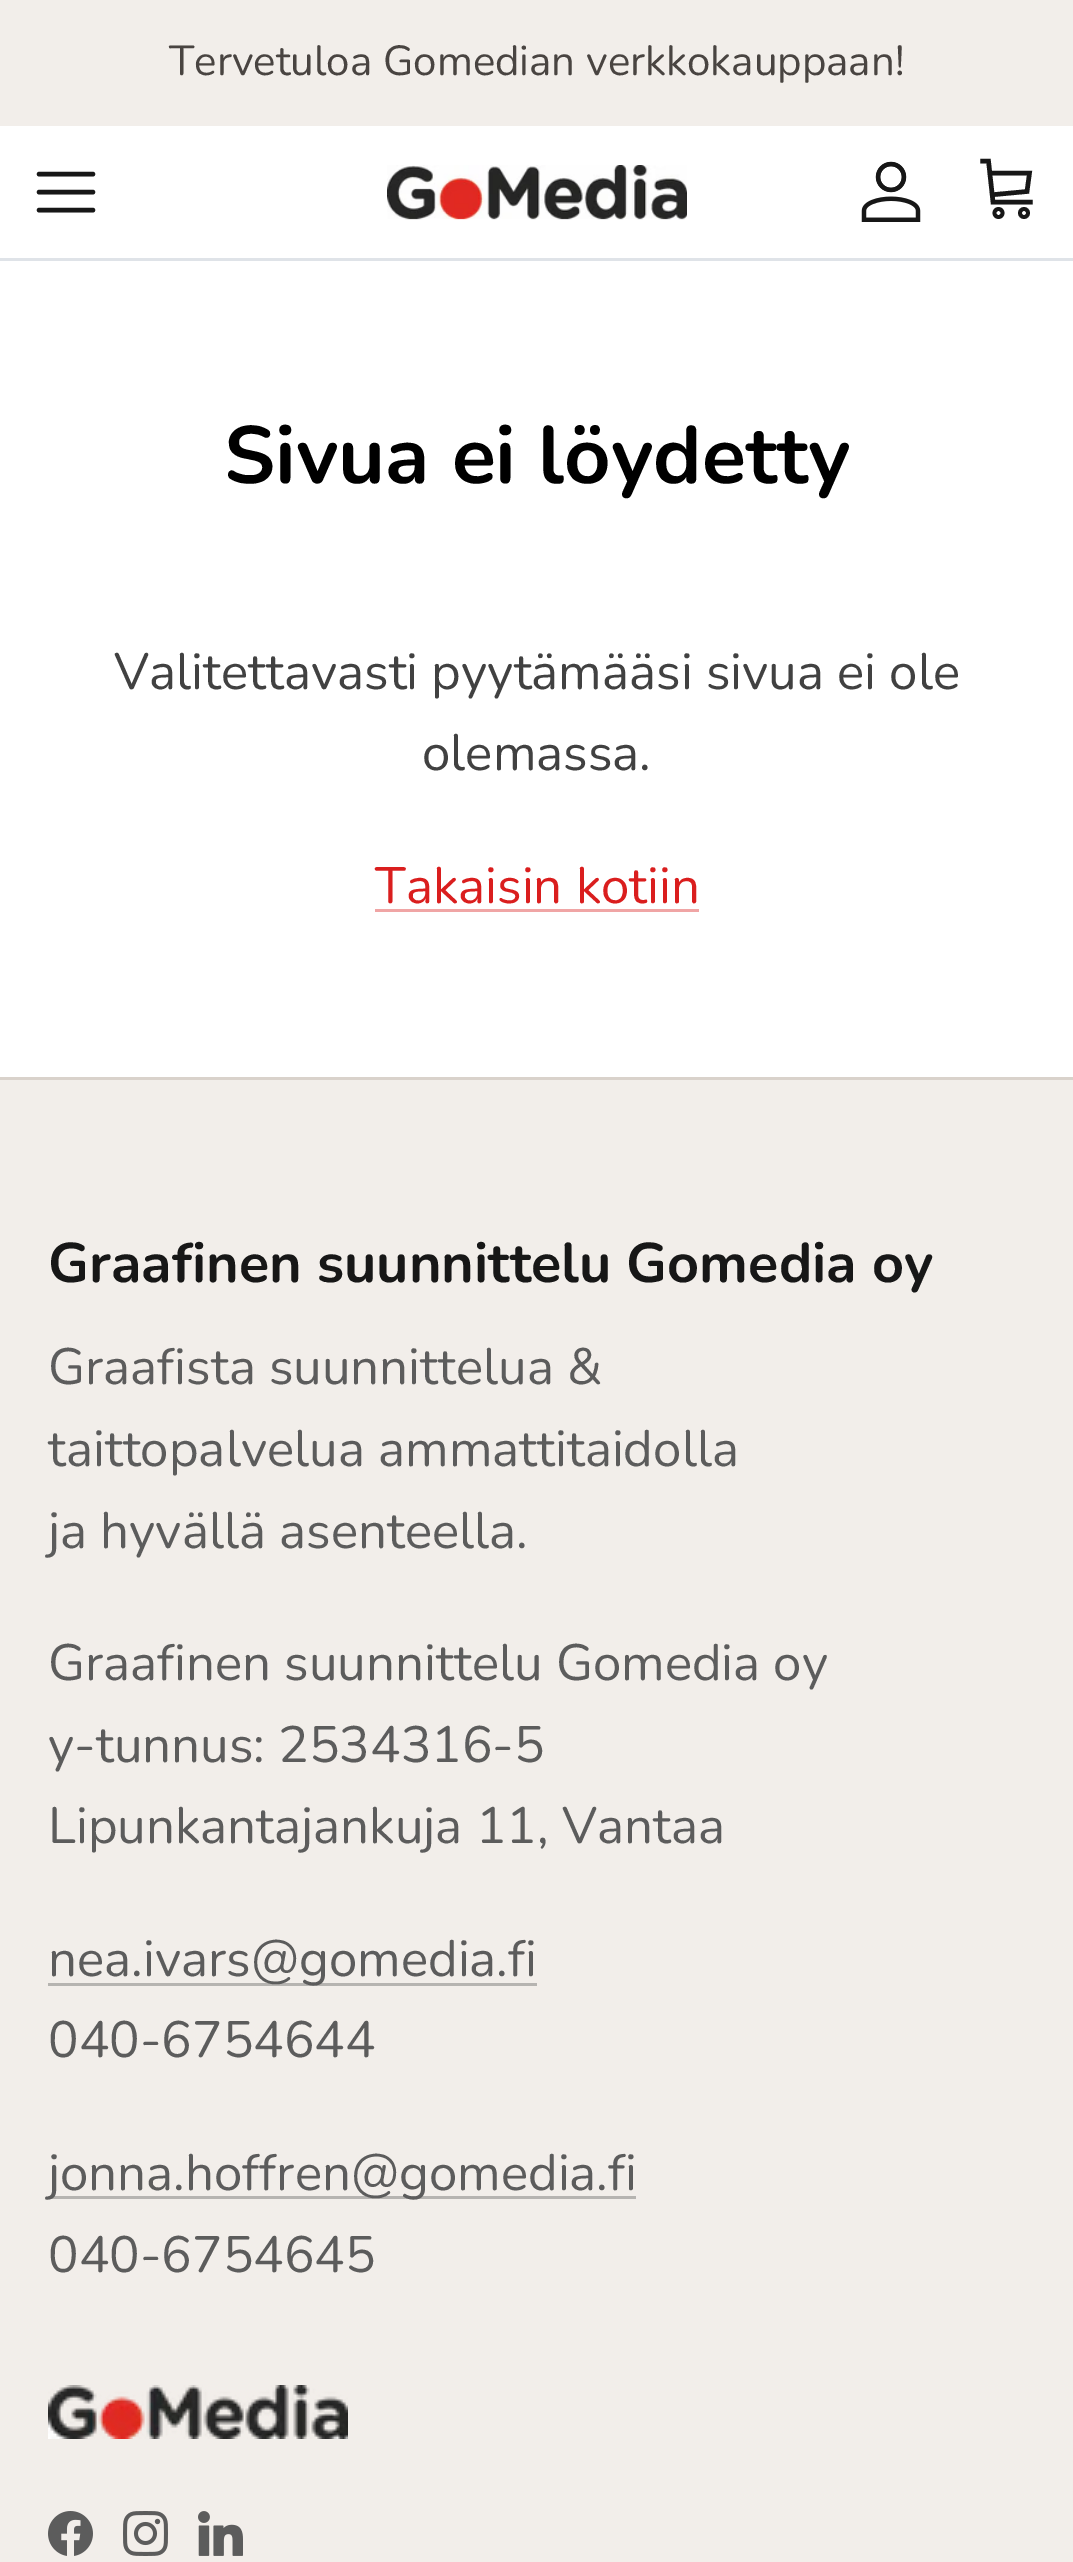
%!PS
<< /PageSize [1073 2562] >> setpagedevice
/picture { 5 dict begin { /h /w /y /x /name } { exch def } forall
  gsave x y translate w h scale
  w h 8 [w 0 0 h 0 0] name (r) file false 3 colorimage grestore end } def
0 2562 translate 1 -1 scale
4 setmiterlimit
1 setgray
0 0 1073 2562 rectfill
0.949 0.933 0.918 setrgbcolor
0 0 1073 126 rectfill
/Nunito-Regular [42 0 0 -42 0 0] selectfont
0.286 0.267 0.255 setrgbcolor
169 75 moveto (Tervetuloa Gomedian verkkokauppaan!) show
0.875 0.89 0.91 setrgbcolor
0 258 1073 3 rectfill
0.09 setgray
4.5 setlinewidth
1 setlinecap
1 setlinejoin
newpath 39 192 moveto 93 192 lineto 39 174 moveto 93 174 lineto 39 210 moveto 93 210 lineto stroke
(img1.rgb) 387 165 300 55 picture
(img2.rgb) 861 161 60 61 picture
2 setlinecap
0 setlinejoin
newpath 982.5 161 moveto 988.5 161 lineto 993 202 lineto 1030.5 202 lineto 990.5 173 moveto 1029.5 173 lineto 1027 191.5 lineto 995 194.5 lineto stroke
3.8 setlinewidth
0 setlinecap
newpath 998.5 213 4 0 360 arc closepath stroke
newpath 1024 213 4 0 360 arc closepath stroke
/Nunito-Bold [81 0 0 -81 0 0] selectfont
0 setgray
224 483 moveto (Sivua ei löydetty) show
/Nunito-Regular [51 0 0 -51 0 0] selectfont
0.255 setgray
114 689 moveto (Valitettavasti pyytämääsi sivua ei ole) show
422 770 moveto (olemassa.) show
0.855 0.118 0.118 setrgbcolor
375 903 moveto (Takaisin kotiin) show
0.941 0.647 0.647 setrgbcolor
375 909 324 3 rectfill
0.949 0.933 0.918 setrgbcolor
0 1080 1073 1482 rectfill
0.851 0.824 0.796 setrgbcolor
0 1077 1073 3 rectfill
/Nunito-Bold [55.75 0 0 -55.75 0 0] selectfont
0.09 setgray
48 1282 moveto (Graafinen suunnittelu Gomedia oy) show
/Nunito-Regular [51 0 0 -51 0 0] selectfont
0.361 setgray
48 1384 moveto (Graafista suunnittelua &) show
48 1466 moveto (taittopalvelua ammattitaidolla) show
48 1548 moveto (ja hyvällä asenteella.) show
48 1680 moveto (Graafinen suunnittelu Gomedia oy) show
48 1762 moveto (y-tunnus: 2534316-5) show
48 1843 moveto (Lipunkantajankuja 11, Vantaa) show
0.714 0.706 0.694 setrgbcolor
48 1983 489 3 rectfill
0.361 setgray
48 1976 moveto (nea.ivars@gomedia.fi) show
48 2057 moveto (040-6754644) show
0.714 0.706 0.694 setrgbcolor
48 2196 588 3 rectfill
0.361 setgray
48 2190 moveto (jonna.hoffren@gomedia.fi) show
48 2272 moveto (040-6754645) show
(img3.rgb) 48 2385 300 54 picture
(img4.rgb) 48 2511 45 45 picture
(img5.rgb) 123 2511 45 45 picture
(img6.rgb) 198 2511 45 45 picture
showpage
